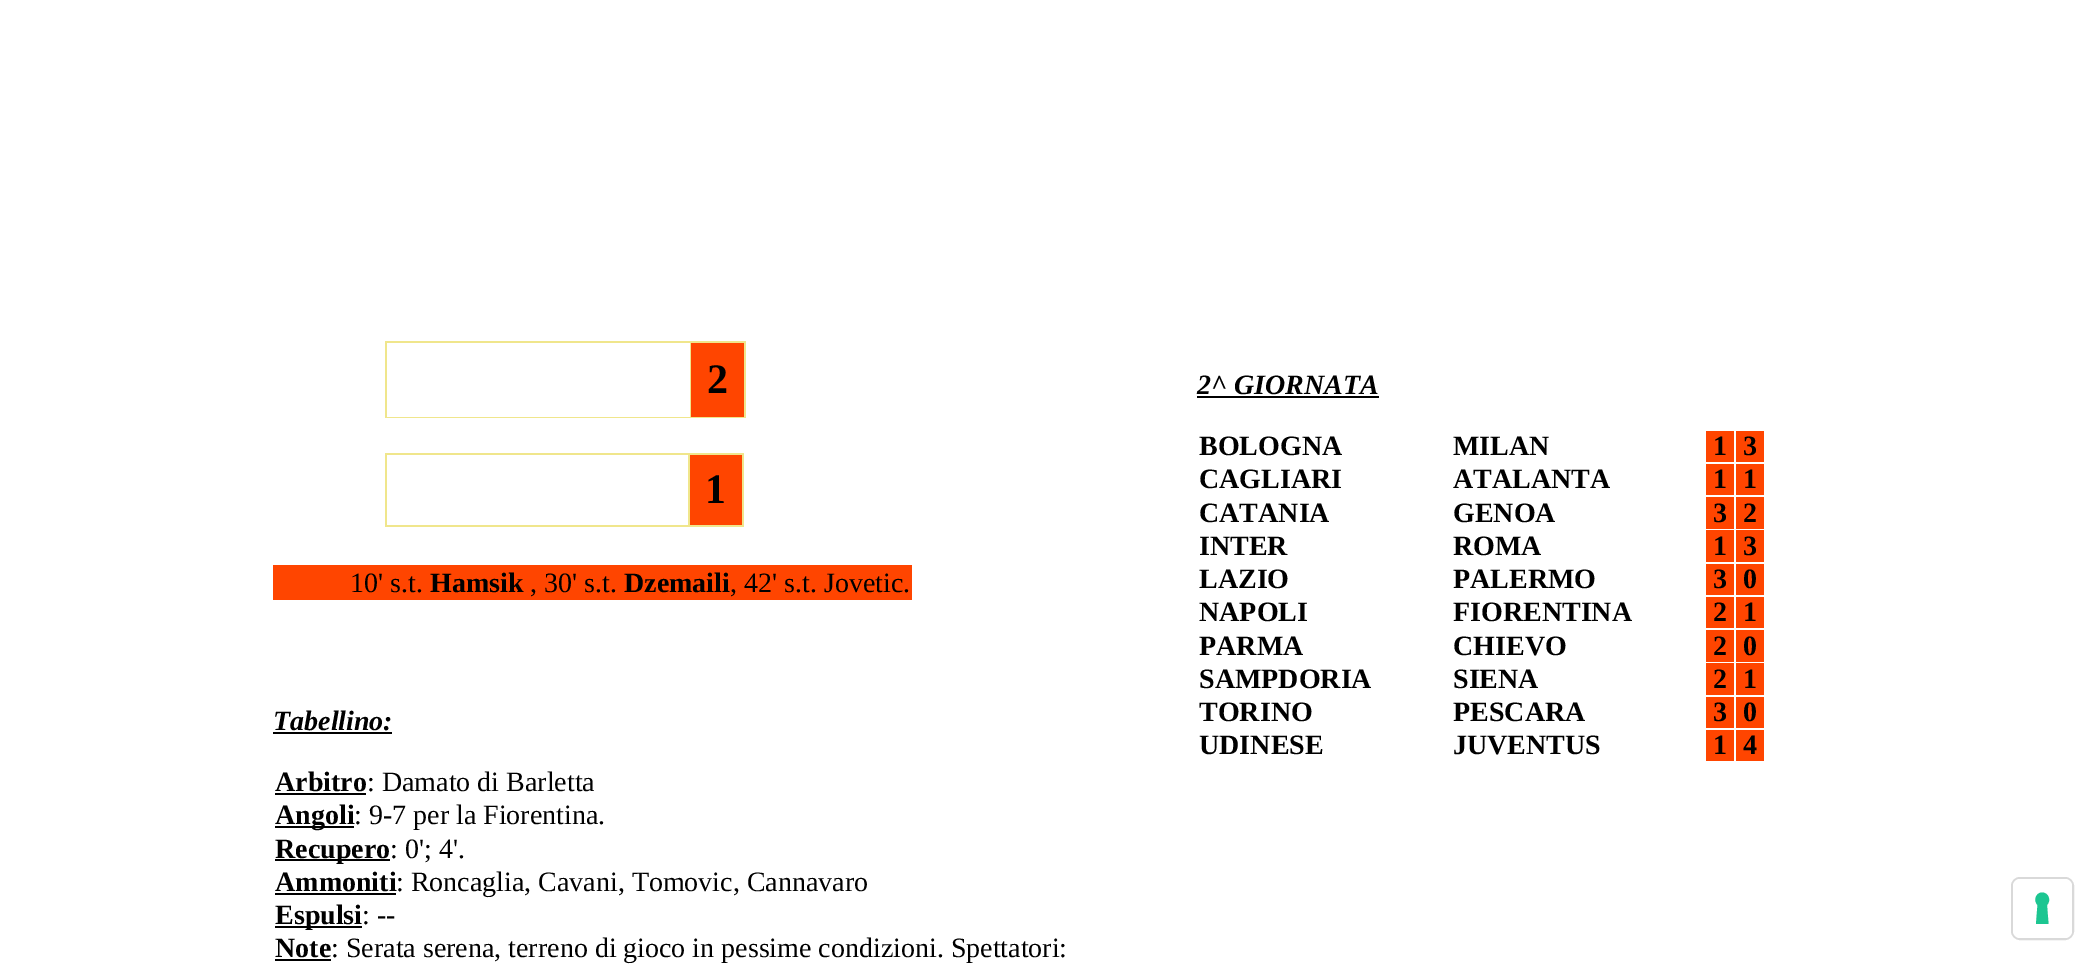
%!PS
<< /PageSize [2099 965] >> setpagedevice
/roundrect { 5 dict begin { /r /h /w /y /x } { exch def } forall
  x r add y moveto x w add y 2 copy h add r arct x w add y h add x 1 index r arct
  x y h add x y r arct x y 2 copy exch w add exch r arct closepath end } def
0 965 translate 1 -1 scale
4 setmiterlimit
1 setgray
0 0 2099 965 rectfill
0.941 0.902 0.549 setrgbcolor
385 341 361 77 rectfill
1 setgray
387 343 303 74 rectfill
1 0.271 0 setrgbcolor
691 343 53 74 rectfill
/LiberationSerif-Bold [42 0 0 -42 0 0] selectfont
0 setgray
707 393 moveto (2) show
/LiberationSerif-BoldItalic [28 0 0 -28 0 0] selectfont
1197 394 moveto (2^ GIORNATA) show
1197 396 182 2 rectfill
/LiberationSerif-Bold [28 0 0 -28 0 0] selectfont
1199 455 moveto (BOLOGNA) show
1453 455 moveto (MILAN) show
1 0.271 0 setrgbcolor
1706 431 28 31 rectfill
0 setgray
1713 455 moveto (1) show
1 0.271 0 setrgbcolor
1736 431 28 31 rectfill
0 setgray
1743 455 moveto (3) show
1199 488 moveto (CAGLIARI) show
1453 488 moveto (ATALANTA) show
1 0.271 0 setrgbcolor
1706 464 28 31 rectfill
0 setgray
1713 488 moveto (1) show
1 0.271 0 setrgbcolor
1736 464 28 31 rectfill
0 setgray
1743 488 moveto (1) show
1199 522 moveto (CATANIA) show
1453 522 moveto (GENOA) show
1 0.271 0 setrgbcolor
1706 497 28 32 rectfill
0 setgray
1713 522 moveto (3) show
1 0.271 0 setrgbcolor
1736 497 28 32 rectfill
0 setgray
1743 522 moveto (2) show
1199 555 moveto (INTER) show
1453 555 moveto (ROMA) show
1 0.271 0 setrgbcolor
1706 530 28 32 rectfill
0 setgray
1713 555 moveto (1) show
1 0.271 0 setrgbcolor
1736 530 28 32 rectfill
0 setgray
1743 555 moveto (3) show
1199 588 moveto (LAZIO) show
1453 588 moveto (PALERMO) show
1 0.271 0 setrgbcolor
1706 564 28 31 rectfill
0 setgray
1713 588 moveto (3) show
1 0.271 0 setrgbcolor
1736 564 28 31 rectfill
0 setgray
1743 588 moveto (0) show
1199 621 moveto (NAPOLI) show
1453 621 moveto (FIORENTINA) show
1 0.271 0 setrgbcolor
1706 597 28 31 rectfill
0 setgray
1713 621 moveto (2) show
1 0.271 0 setrgbcolor
1736 597 28 31 rectfill
0 setgray
1743 621 moveto (1) show
1199 655 moveto (PARMA) show
1453 655 moveto (CHIEVO) show
1 0.271 0 setrgbcolor
1706 630 28 32 rectfill
0 setgray
1713 655 moveto (2) show
1 0.271 0 setrgbcolor
1736 630 28 32 rectfill
0 setgray
1743 655 moveto (0) show
1199 688 moveto (SAMPDORIA) show
1453 688 moveto (SIENA) show
1 0.271 0 setrgbcolor
1706 663 28 32 rectfill
0 setgray
1713 688 moveto (2) show
1 0.271 0 setrgbcolor
1736 663 28 32 rectfill
0 setgray
1743 688 moveto (1) show
1199 721 moveto (TORINO) show
1453 721 moveto (PESCARA) show
1 0.271 0 setrgbcolor
1706 697 28 31 rectfill
0 setgray
1713 721 moveto (3) show
1 0.271 0 setrgbcolor
1736 697 28 31 rectfill
0 setgray
1743 721 moveto (0) show
1199 754 moveto (UDINESE) show
1453 754 moveto (JUVENTUS) show
1 0.271 0 setrgbcolor
1706 730 28 31 rectfill
0 setgray
1713 754 moveto (1) show
1 0.271 0 setrgbcolor
1736 730 28 31 rectfill
0 setgray
1743 754 moveto (4) show
0.941 0.902 0.549 setrgbcolor
385 453 359 74 rectfill
1 setgray
387 455 301 70 rectfill
1 0.271 0 setrgbcolor
690 455 52 70 rectfill
/LiberationSerif-Bold [42 0 0 -42 0 0] selectfont
0 setgray
705 503 moveto (1) show
1 0.271 0 setrgbcolor
273 565 639 35 rectfill
/LiberationSerif-Regular [28 0 0 -28 0 0] selectfont
0 setgray
350 592 moveto (10' s.t.) show
/LiberationSerif-Bold [28 0 0 -28 0 0] selectfont
430 592 moveto (Hamsik) show
/LiberationSerif-Regular [28 0 0 -28 0 0] selectfont
530 592 moveto (, 30' s.t.) show
/LiberationSerif-Bold [28 0 0 -28 0 0] selectfont
624 592 moveto (Dzemaili) show
/LiberationSerif-Regular [28 0 0 -28 0 0] selectfont
730 592 moveto (, 42' s.t. Jovetic.) show
/LiberationSerif-BoldItalic [28 0 0 -28 0 0] selectfont
273 730 moveto (Tabellino:) show
273 732 119 2 rectfill
/LiberationSerif-Bold [28 0 0 -28 0 0] selectfont
275 791 moveto (Arbitro) show
275 793 91 2 rectfill
/LiberationSerif-Regular [28 0 0 -28 0 0] selectfont
367 791 moveto (: Damato di Barletta) show
275 826 79 2 rectfill
/LiberationSerif-Bold [28 0 0 -28 0 0] selectfont
275 824 moveto (Angoli) show
/LiberationSerif-Regular [28 0 0 -28 0 0] selectfont
354 824 moveto (: 9-7 per la Fiorentina.) show
275 859 115 2 rectfill
/LiberationSerif-Bold [28 0 0 -28 0 0] selectfont
275 858 moveto (Recupero) show
/LiberationSerif-Regular [28 0 0 -28 0 0] selectfont
390 858 moveto (: 0'; 4'.) show
/LiberationSerif-Bold [28 0 0 -28 0 0] selectfont
275 891 moveto (Ammoniti) show
/LiberationSerif-Regular [28 0 0 -28 0 0] selectfont
396 891 moveto (: Roncaglia, Cavani, Tomovic, Cannavaro) show
275 893 121 2 rectfill
275 926 87 2 rectfill
/LiberationSerif-Bold [28 0 0 -28 0 0] selectfont
275 924 moveto (Espulsi) show
/LiberationSerif-Regular [28 0 0 -28 0 0] selectfont
362 924 moveto (: --) show
/LiberationSerif-Bold [28 0 0 -28 0 0] selectfont
275 957 moveto (Note) show
/LiberationSerif-Regular [28 0 0 -28 0 0] selectfont
331 957 moveto (: Serata serena, terreno di gioco in pessime condizioni. Spettatori:) show
275 959 56 2 rectfill
0.851 setgray
2 setlinewidth
2012 878 61 61 8 roundrect stroke
1 setgray
2013 879 59 59 7 roundrect fill
0.11 0.776 0.569 setrgbcolor
newpath 2042 892.5 moveto 2048.5 892.5 2051.5 900.5 2047 905 curveto 2048.5 924 lineto 2036 924 lineto 2037.5 905 lineto 2033 900.5 2036 892.5 2042 892.5 curveto closepath eofill
showpage
